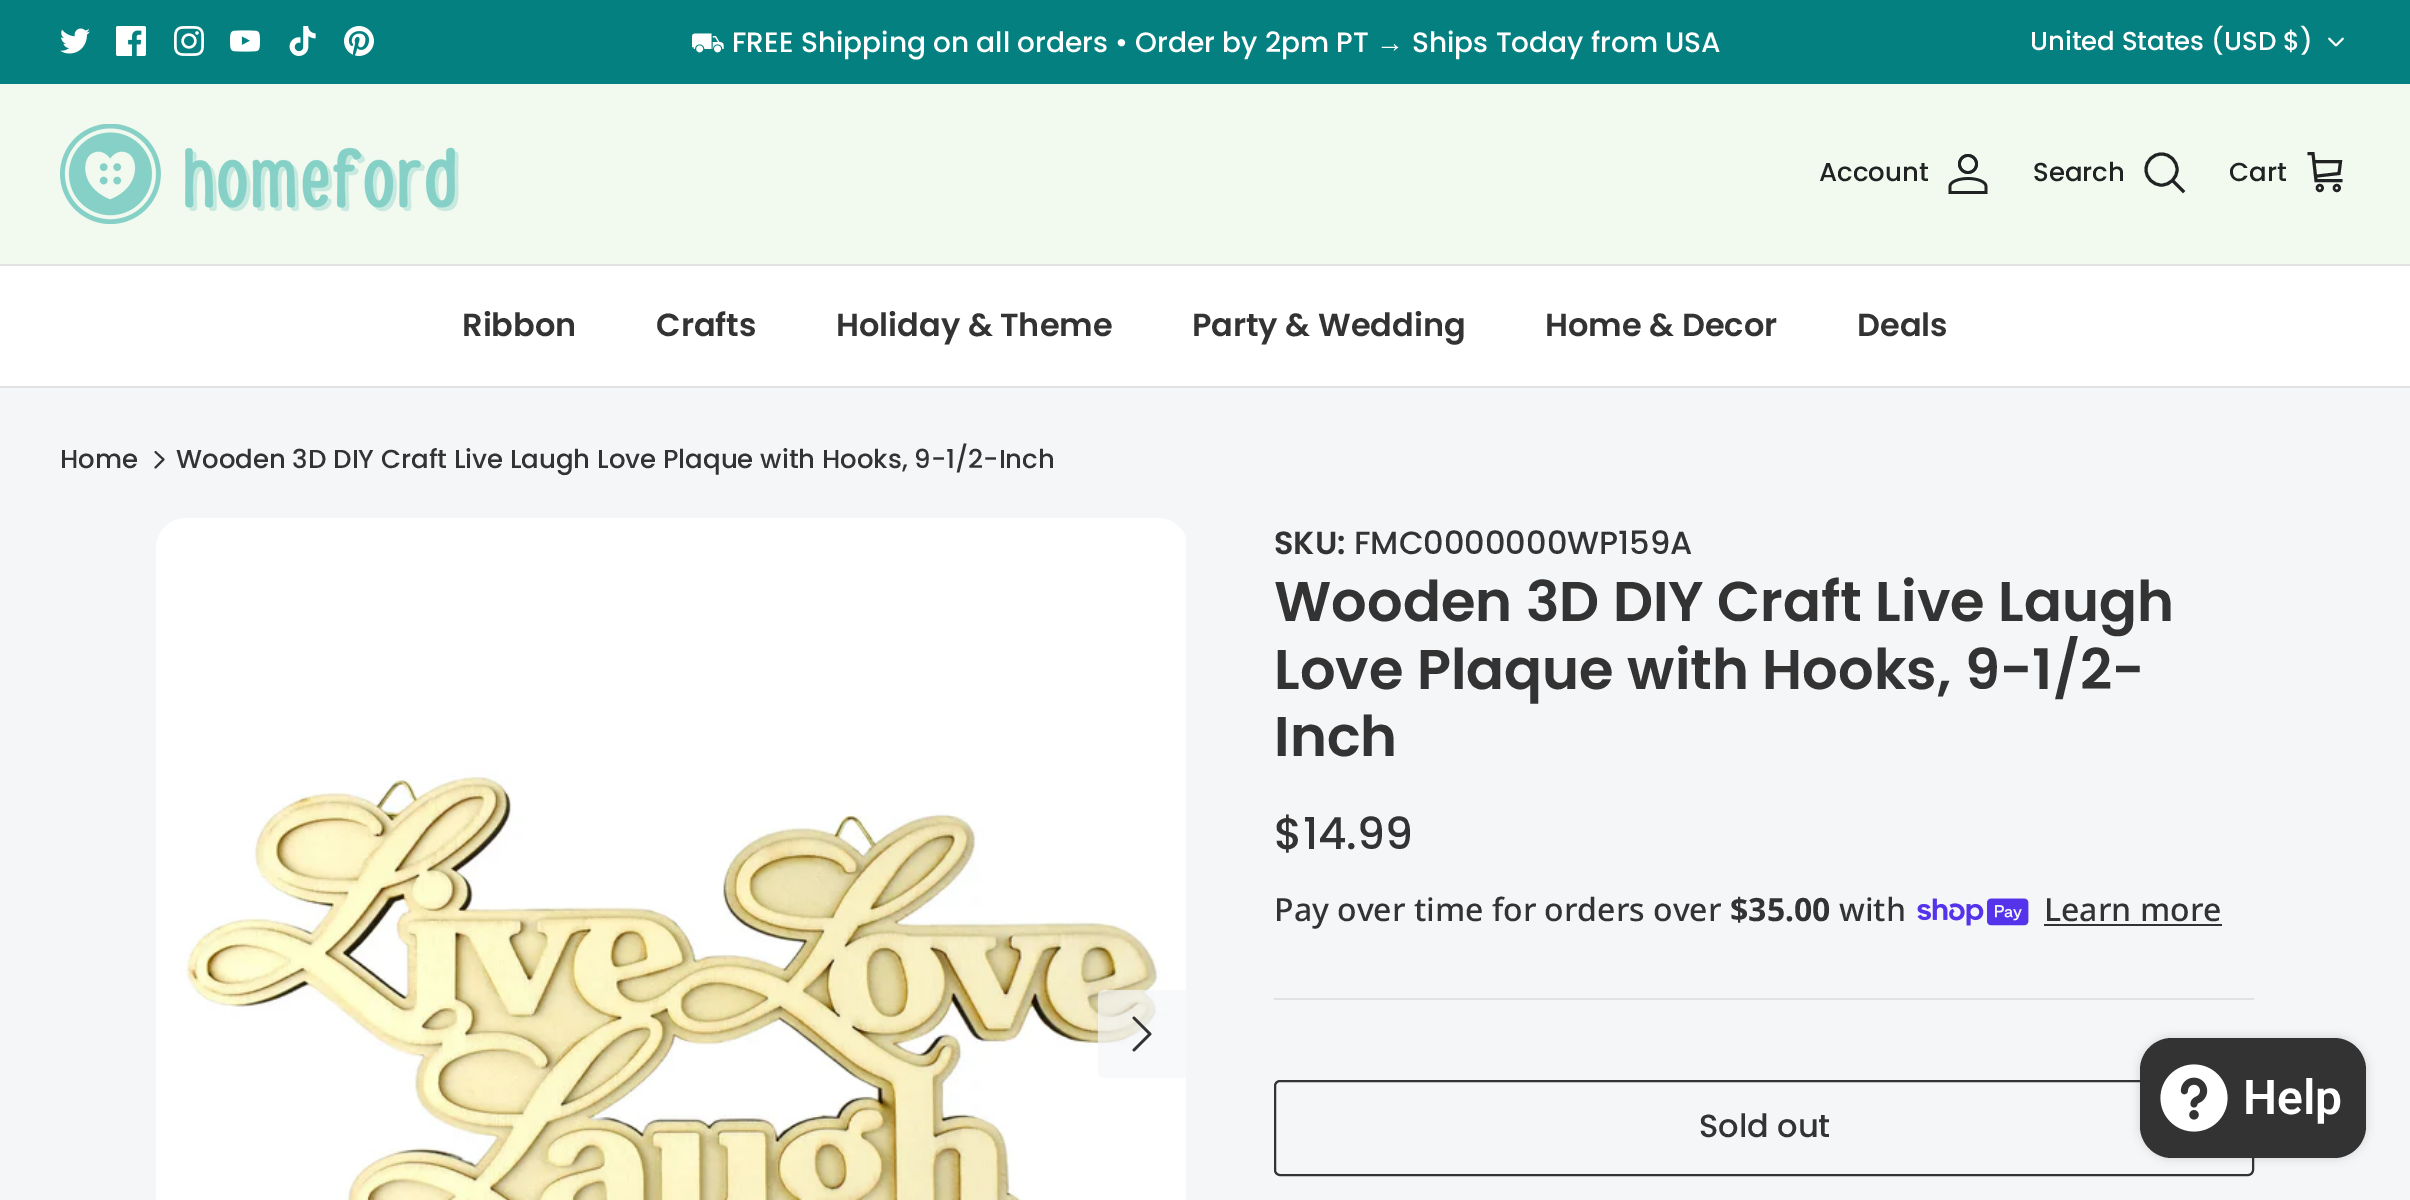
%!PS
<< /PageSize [2410 1200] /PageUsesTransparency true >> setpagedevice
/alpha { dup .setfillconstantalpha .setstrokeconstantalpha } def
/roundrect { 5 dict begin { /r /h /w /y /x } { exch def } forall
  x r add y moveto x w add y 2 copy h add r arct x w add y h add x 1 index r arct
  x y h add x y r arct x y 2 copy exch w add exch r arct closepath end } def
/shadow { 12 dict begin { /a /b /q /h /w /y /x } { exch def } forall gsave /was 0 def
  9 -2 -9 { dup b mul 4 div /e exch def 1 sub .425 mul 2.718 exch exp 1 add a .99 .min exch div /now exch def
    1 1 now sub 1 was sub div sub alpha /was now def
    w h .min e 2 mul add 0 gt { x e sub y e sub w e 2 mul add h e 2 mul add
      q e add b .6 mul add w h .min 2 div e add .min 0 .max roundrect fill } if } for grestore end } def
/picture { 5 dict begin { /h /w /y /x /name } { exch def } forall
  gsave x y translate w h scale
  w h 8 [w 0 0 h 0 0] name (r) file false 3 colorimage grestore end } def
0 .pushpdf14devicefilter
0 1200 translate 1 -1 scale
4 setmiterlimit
0.957 0.965 0.973 setrgbcolor
0 0 2410 1200 rectfill
0.016 0.502 0.502 setrgbcolor
0 0 2410 84 rectfill
(img1.rgb) 60 28 30 26 picture
(img2.rgb) 116 26 30 30 picture
(img3.rgb) 174 26 30 30 picture
(img4.rgb) 230 30 30 22 picture
(img5.rgb) 289 26 27 30 picture
(img6.rgb) 344 26 30 30 picture
/STIXTwoMath-Regular [28 0 0 -28 0 0] selectfont
1 setgray
690 52 moveto (⛟) show
/Poppins-Medium [28 0 0 -28 0 0] selectfont
732 52 moveto (FREE Shipping on all orders • Order by 2pm PT) show
/LiberationSans-Regular [28 0 0 -28 0 0] selectfont
1376 52 moveto (→) show
/Poppins-Medium [28 0 0 -28 0 0] selectfont
1412 52 moveto (Ships Today from USA) show
/Poppins-Medium [26 0 0 -26 0 0] selectfont
2030 50 moveto (United States \(USD $\)) show
1.8 setlinewidth
1 setlinecap
1 setlinejoin
newpath 2329 38.5 moveto 2336 45.5 lineto 2343 38.5 lineto stroke
0.949 0.98 0.941 setrgbcolor
0 84 2410 180 rectfill
0.886 setgray
0 264 2410 2 rectfill
(img7.rgb) 60 124 399 100 picture
0.125 0.133 0.137 setrgbcolor
1819 181 moveto (Account) show
(img8.rgb) 1948 154 40 40 picture
2033 181 moveto (Search) show
3 setlinewidth
0 setlinecap
0 setlinejoin
newpath 2161.5 169.5 15.5 0 360 arc closepath stroke
2 setlinecap
newpath 2174 182 moveto 2183 191 lineto stroke
2229 181 moveto (Cart) show
newpath 2309 153.5 moveto 2313 153.5 lineto 2316 180.5 lineto 2341 180.5 lineto 2314.5 161.5 moveto 2340.5 161.5 lineto 2339 173.5 lineto 2317.5 176 lineto stroke
2.5 setlinewidth
0 setlinecap
newpath 2319.8 188 2.8 0 360 arc closepath stroke
newpath 2336.8 188 2.8 0 360 arc closepath stroke
0.886 setgray
0 386 2410 2 rectfill
1 setgray
0 266 2410 120 rectfill
/Poppins-SemiBold [32 0 0 -32 0 0] selectfont
0.2 setgray
462 336 moveto (Ribbon) show
656 336 moveto (Crafts) show
836 336 moveto (Holiday & Theme) show
1192 336 moveto (Party & Wedding) show
1545 336 moveto (Home & Decor) show
1857 336 moveto (Deals) show
/Poppins-Medium [26 0 0 -26 0 0] selectfont
60 468 moveto (Home) show
1.9 setlinewidth
1 setlinecap
1 setlinejoin
newpath 155.5 467.5 moveto 163.5 459.5 lineto 155.5 452 lineto stroke
176 468 moveto (Wooden 3D DIY Craft Live Laugh Love Plaque with Hooks, 9-1/2-Inch) show
(img9.rgb) 156 518 1030 682 picture
0.7 alpha
0.957 0.965 0.973 setrgbcolor
newpath 1104 990 moveto 1186 990 lineto 1186 1078 lineto 1104 1078 lineto 1100.5 1078 1098 1075.5 1098 1072 curveto 1098 996 lineto 1098 992.5 1100.5 990 1104 990 curveto closepath fill
1 alpha
0.2 setgray
2.7 setlinewidth
newpath 1134 1050 moveto 1150 1034 lineto 1134 1018 lineto stroke
/Poppins-SemiBold [32 0 0 -32 0 0] selectfont
1274 554 moveto (SKU:) show
/Poppins-Medium [32 0 0 -32 0 0] selectfont
1354 554 moveto (FMC0000000WP159A) show
/Poppins-SemiBold [56 0 0 -56 0 0] selectfont
1274 621 moveto (Wooden 3D DIY Craft Live Laugh) show
1274 689 moveto (Love Plaque with Hooks, 9-1/2-) show
1274 756 moveto (Inch) show
/Poppins-Medium [44 0 0 -44 0 0] selectfont
1274 849 moveto ($14.99) show
/NotoSans-Medium [32 0 0 -32 0 0] selectfont
1274 921 moveto (Pay over time for orders over) show
/NotoSans-Bold [32 0 0 -32 0 0] selectfont
1730 921 moveto ($35.00) show
/NotoSans-Medium [32 0 0 -32 0 0] selectfont
1839 921 moveto (with) show
(img10.rgb) 1917 898 112 28 picture
2044 921 moveto (Learn more) show
2044 924 178 2 rectfill
0.886 setgray
1274 998 980 2 rectfill
0.2 setgray
2 setlinewidth
0 setlinecap
0 setlinejoin
1275 1081 978 94 5 roundrect stroke
/Poppins-Medium [32 0 0 -32 0 0] selectfont
1699 1137 moveto (Sold out) show
0 setgray
2140 1038 226 120 32 5 0.15 shadow
0.2 setgray
2140 1038 226 120 32 roundrect fill
(img11.rgb) 2160 1064 68 68 picture
/Roboto-SemiBold [48 0 0 -48 0 0] selectfont
1 setgray
2243 1114 moveto (Help) show
.poppdf14devicefilter showpage
